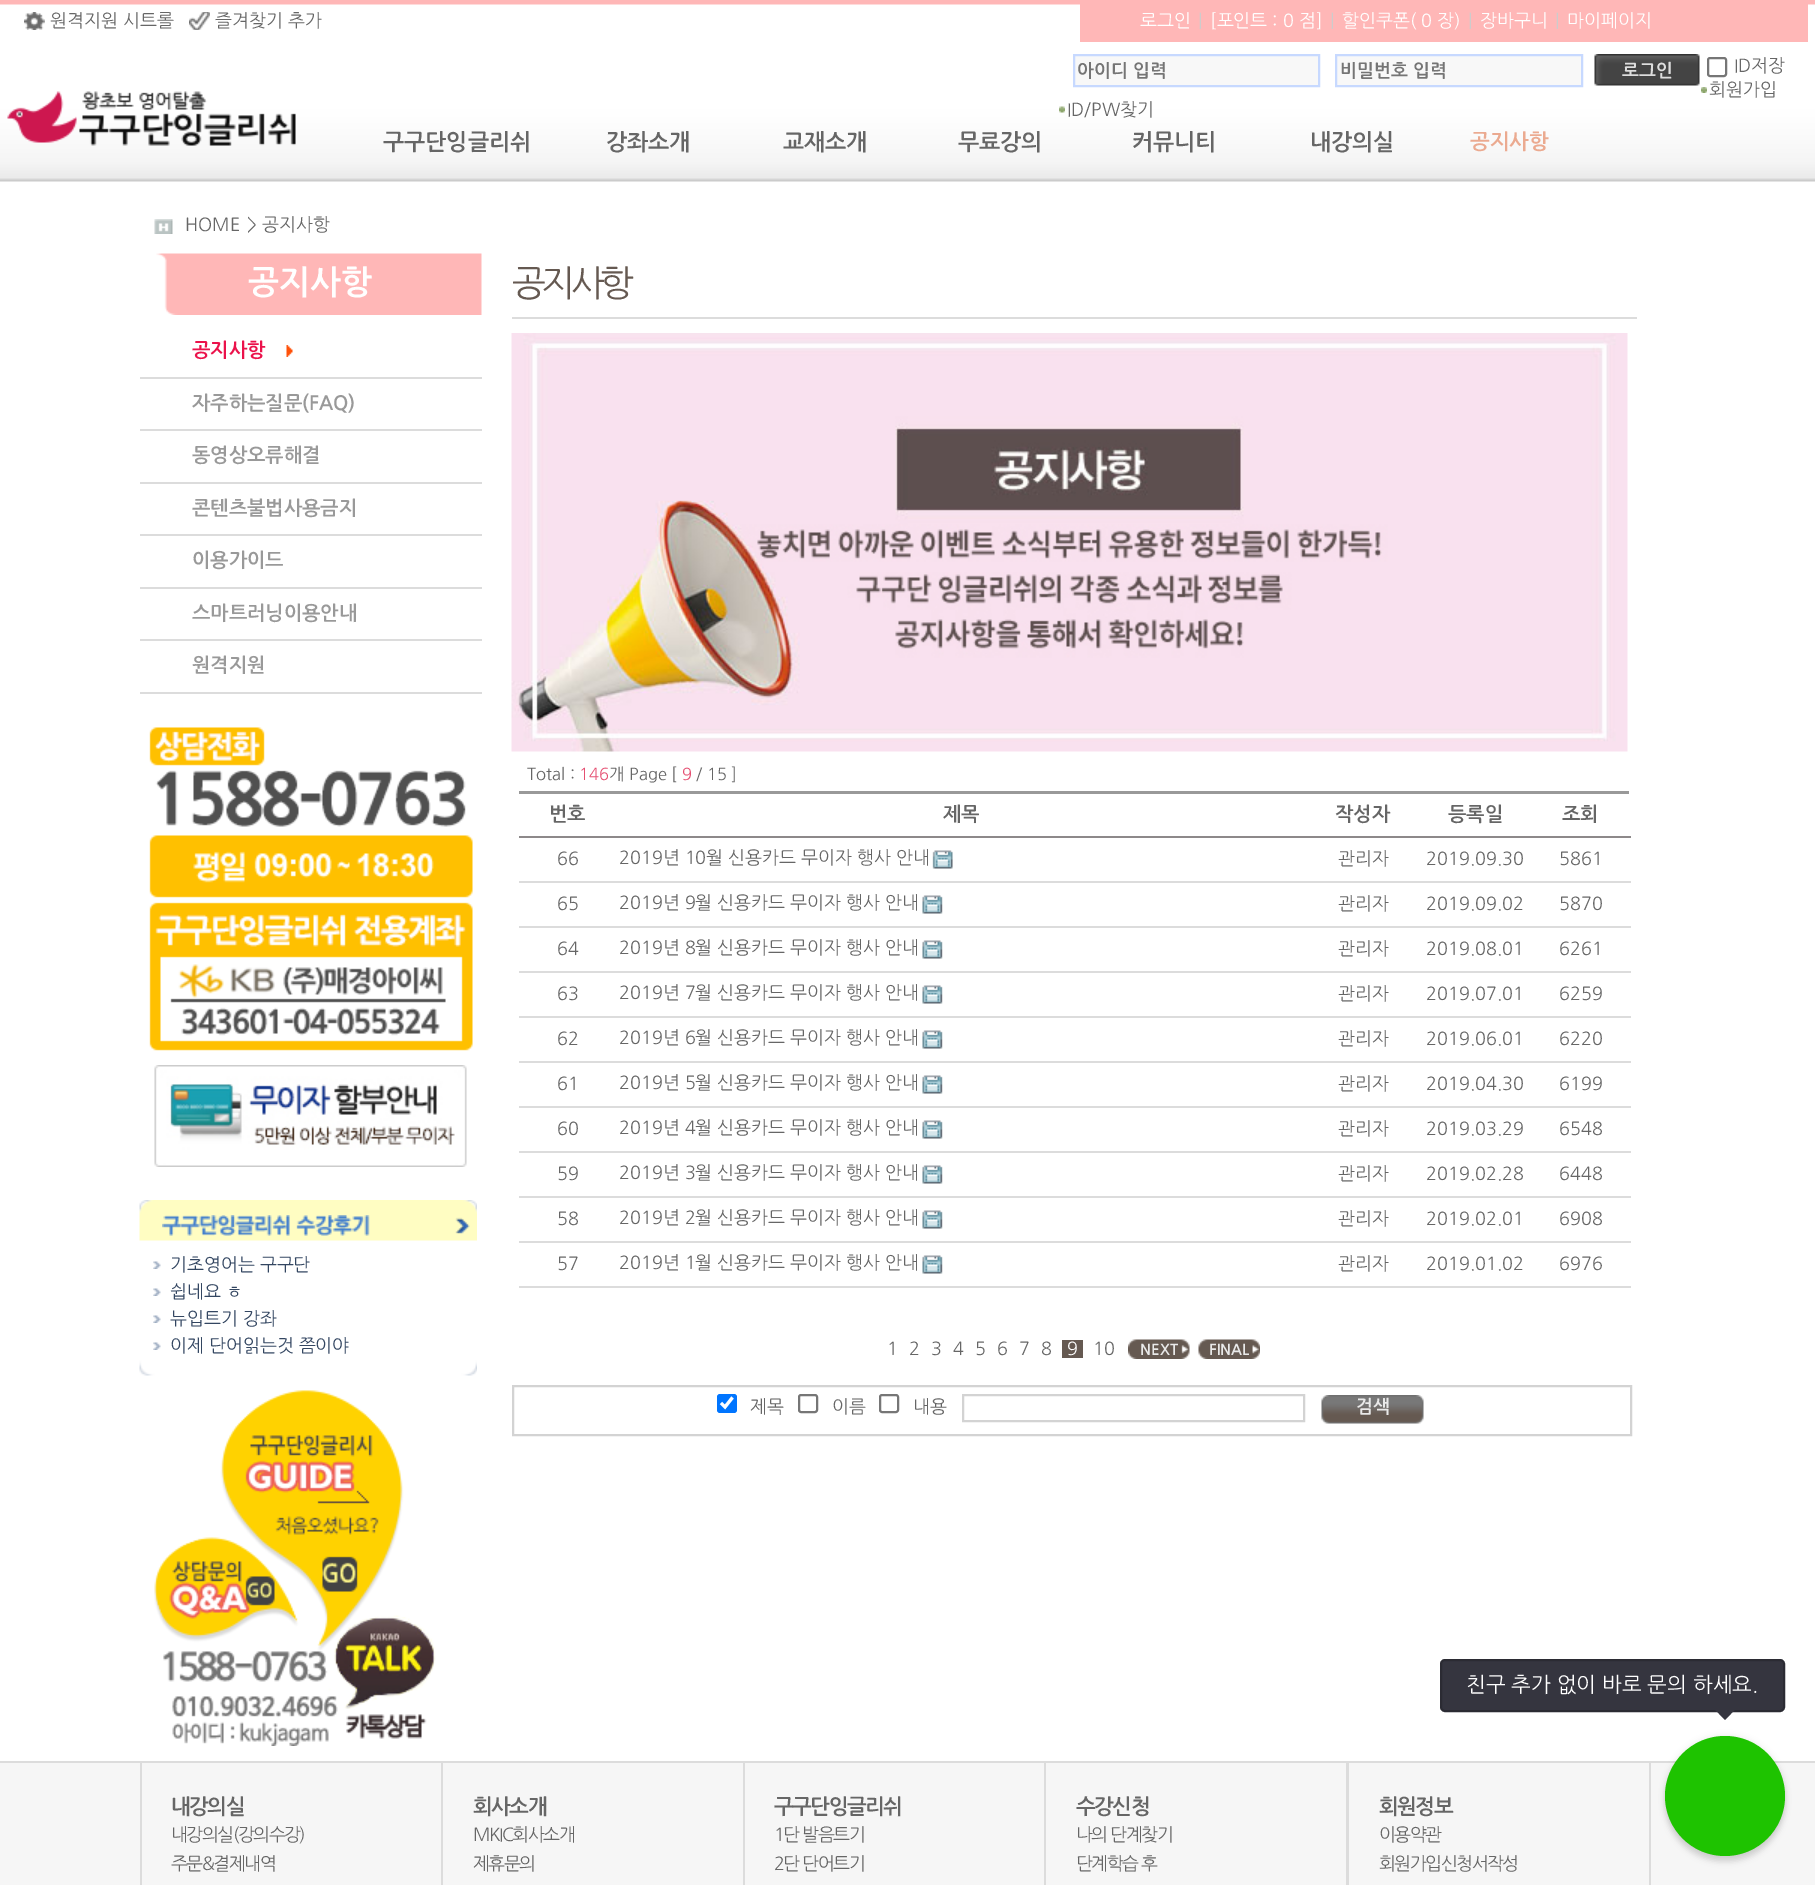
%!PS
<< /PageSize [1815 1885] /PageUsesTransparency true >> setpagedevice
/alpha { dup .setfillconstantalpha .setstrokeconstantalpha } def
/roundrect { 5 dict begin { /r /h /w /y /x } { exch def } forall
  x r add y moveto x w add y 2 copy h add r arct x w add y h add x 1 index r arct
  x y h add x y r arct x y 2 copy exch w add exch r arct closepath end } def
/shadow { 12 dict begin { /a /b /q /h /w /y /x } { exch def } forall gsave /was 0 def
  9 -2 -9 { dup b mul 4 div /e exch def 1 sub .425 mul 2.718 exch exp 1 add a .99 .min exch div /now exch def
    1 1 now sub 1 was sub div sub alpha /was now def
    w h .min e 2 mul add 0 gt { x e sub y e sub w e 2 mul add h e 2 mul add
      q e add b .6 mul add w h .min 2 div e add .min 0 .max roundrect fill } if } for grestore end } def
/picture { 5 dict begin { /h /w /y /x /name } { exch def } forall
  gsave x y translate w h scale
  w h 8 [w 0 0 h 0 0] name (r) file false 3 colorimage grestore end } def
0 .pushpdf14devicefilter
0 1885 translate 1 -1 scale
4 setmiterlimit
1 setgray
0 0 1815 1885 rectfill
(img1.rgb) 0 0 1815 182 picture
(img2.rgb) 24 12 21 18 picture
/NanumGothic-Regular [18 0 0 -18 0 0] selectfont
0.4 setgray
50 27 moveto (원격지원 시트롤) show
(img3.rgb) 189 12 21 18 picture
215 27 moveto (즐겨찾기 추가) show
1 0.718 0.718 setrgbcolor
1080 4 728 38 rectfill
1 setgray
1140 27 moveto (로그인) show
0.8 setgray
1198 27 moveto (|) show
1 setgray
1210 27 moveto ([포인트 : 0 점]) show
0.8 setgray
1330 27 moveto (|) show
1 setgray
1342 27 moveto (할인쿠폰\( 0 장\)) show
0.8 setgray
1468 27 moveto (|) show
1 setgray
1480 27 moveto (장바구니) show
0.8 setgray
1555 27 moveto (|) show
1 setgray
1567 27 moveto (마이페이지) show
0.973 setgray
newpath 1074 55 moveto 1319 55 lineto 1319 86 lineto 1074 86 lineto closepath gsave fill grestore
0.78 0.851 1 setrgbcolor
2 setlinewidth
stroke
gsave
1077 62 239 18 rectclip
/NanumGothic-Bold [18 0 0 -18 0 0] selectfont
0.459 setgray
1077 77 moveto (아이디 입력) show
grestore
0.973 setgray
newpath 1336 55 moveto 1582 55 lineto 1582 86 lineto 1336 86 lineto closepath gsave fill grestore
0.78 0.851 1 setrgbcolor
stroke
gsave
1340 62 238 18 rectclip
/NanumGothic-Bold [18 0 0 -18 0 0] selectfont
0.459 setgray
1340 77 moveto (비밀번호 입력) show
grestore
(img4.rgb) 1594 54 106 32 picture
/NanumGothic-Bold [18 0 0 -18 0 0] selectfont
0.867 setgray
1622 77 moveto (로그인) show
0.463 setgray
1708 58 18 18 2 roundrect stroke
/NanumGothic-Regular [18 0 0 -18 0 0] selectfont
0.4 setgray
1734 72 moveto (ID저장) show
(img5.rgb) 1701 87 6 6 picture
1709 96 moveto (회원가입) show
(img6.rgb) 1059 106 6 7 picture
1067 116 moveto (ID/PW찾기) show
(img7.rgb) 7 91 289 55 picture
/NanumGothic-Bold [22.5 0 0 -22.5 0 0] selectfont
383 150 moveto (구구단잉글리쉬) show
606 150 moveto (강좌소개) show
783 150 moveto (교재소개) show
958 150 moveto (무료강의) show
1132 150 moveto (커뮤니티) show
1310 150 moveto (내강의실) show
/NanumGothic-Bold [21 0 0 -21 0 0] selectfont
0.922 0.667 0.565 setrgbcolor
1470 149 moveto (공지사항) show
(img8.rgb) 154 219 19 15 picture
/NanumGothic-Regular [18 0 0 -18 0 0] selectfont
0.4 setgray
185 231 moveto (HOME) show
247 231 moveto (> 공지사항) show
(img9.rgb) 156 253 326 62 picture
/NanumGothic-Bold [33 0 0 -33 0 0] selectfont
1 setgray
248 294 moveto (공지사항) show
0.863 setgray
140 377 342 2 rectfill
/NanumGothic-Bold [19.5 0 0 -19.5 0 0] selectfont
0.922 0.071 0.294 setrgbcolor
192 357 moveto (공지사항) show
(img10.rgb) 286 345 7 12 picture
0.863 setgray
140 429 342 2 rectfill
0.6 setgray
192 410 moveto (자주하는질문\(FAQ\)) show
0.863 setgray
140 482 342 2 rectfill
0.6 setgray
192 462 moveto (동영상오류해결) show
0.863 setgray
140 534 342 2 rectfill
0.6 setgray
192 515 moveto (콘텐츠불법사용금지) show
0.863 setgray
140 587 342 2 rectfill
0.6 setgray
192 567 moveto (이용가이드) show
0.863 setgray
140 639 342 2 rectfill
0.6 setgray
192 620 moveto (스마트러닝이용안내) show
0.863 setgray
140 692 342 2 rectfill
0.6 setgray
192 672 moveto (원격지원) show
(img11.rgb) 149 727 324 324 picture
(img12.rgb) 154 1065 313 102 picture
(img13.rgb) 139 1200 338 176 picture
(img14.rgb) 162 1215 308 21 picture
(img15.rgb) 153 1261 8 8 picture
/NanumGothic-Regular [18 0 0 -18 0 0] selectfont
0.2 0.275 0.38 setrgbcolor
170 1271 moveto (기초영어는 구구단) show
(img15.rgb) 153 1288 8 8 picture
170 1298 moveto (쉽네요 ㅎ) show
(img15.rgb) 153 1315 8 8 picture
170 1325 moveto (뉴입트기 강좌) show
(img15.rgb) 153 1342 8 8 picture
170 1352 moveto (이제 단어읽는것 쯤이야) show
(img16.rgb) 154 1390 282 356 picture
0.863 setgray
512 317 1125 2 rectfill
/NanumGothic-Regular [36 0 0 -36 0 0] selectfont
0.396 0.349 0.318 setrgbcolor
512 296 moveto -4.5 0 (공지사항) ashow
(img17.rgb) 511 333 1117 419 picture
/NanumGothic-Regular [16.5 0 0 -16.5 0 0] selectfont
0.4 setgray
527 780 moveto (Total :) show
0.898 0.314 0.447 setrgbcolor
579 780 moveto (146) show
0.4 setgray
609 780 moveto (개 Page [) show
0.898 0.314 0.447 setrgbcolor
682 780 moveto (9) show
0.4 setgray
696 780 moveto (/ 15 ]) show
0.6 setgray
519 791 1110 3 rectfill
/NanumGothic-Bold [19.5 0 0 -19.5 0 0] selectfont
0.4 setgray
549 821 moveto (번호) show
943 821 moveto (제목) show
1335 821 moveto (작성자) show
1448 821 moveto (등록일) show
0.553 0.537 0.541 setrgbcolor
519 836 1112 2 rectfill
0.4 setgray
1562 821 moveto (조회) show
/NanumGothic-Regular [18 0 0 -18 0 0] selectfont
557 865 moveto (66) show
619 864 moveto (2019년 10월 신용카드 무이자 행사 안내) show
(img18.rgb) 932 850 21 19 picture
1338 865 moveto (관리자) show
1426 865 moveto (2019.09.30) show
0.863 setgray
519 881 1112 2 rectfill
0.4 setgray
1559 865 moveto (5861) show
557 910 moveto (65) show
619 909 moveto (2019년 9월 신용카드 무이자 행사 안내) show
(img19.rgb) 922 895 21 19 picture
1338 910 moveto (관리자) show
1426 910 moveto (2019.09.02) show
0.863 setgray
519 926 1112 2 rectfill
0.4 setgray
1559 910 moveto (5870) show
557 955 moveto (64) show
619 954 moveto (2019년 8월 신용카드 무이자 행사 안내) show
(img19.rgb) 922 940 21 19 picture
1338 955 moveto (관리자) show
1426 955 moveto (2019.08.01) show
0.863 setgray
519 971 1112 2 rectfill
0.4 setgray
1559 955 moveto (6261) show
557 1000 moveto (63) show
619 999 moveto (2019년 7월 신용카드 무이자 행사 안내) show
(img19.rgb) 922 985 21 19 picture
1338 1000 moveto (관리자) show
1426 1000 moveto (2019.07.01) show
0.863 setgray
519 1016 1112 2 rectfill
0.4 setgray
1559 1000 moveto (6259) show
557 1045 moveto (62) show
619 1044 moveto (2019년 6월 신용카드 무이자 행사 안내) show
(img19.rgb) 922 1030 21 19 picture
1338 1045 moveto (관리자) show
1426 1045 moveto (2019.06.01) show
0.863 setgray
519 1061 1112 2 rectfill
0.4 setgray
1559 1045 moveto (6220) show
557 1090 moveto (61) show
619 1089 moveto (2019년 5월 신용카드 무이자 행사 안내) show
(img19.rgb) 922 1075 21 19 picture
1338 1090 moveto (관리자) show
1426 1090 moveto (2019.04.30) show
0.863 setgray
519 1106 1112 2 rectfill
0.4 setgray
1559 1090 moveto (6199) show
557 1135 moveto (60) show
619 1134 moveto (2019년 4월 신용카드 무이자 행사 안내) show
(img19.rgb) 922 1120 21 19 picture
1338 1135 moveto (관리자) show
1426 1135 moveto (2019.03.29) show
0.863 setgray
519 1151 1112 2 rectfill
0.4 setgray
1559 1135 moveto (6548) show
557 1180 moveto (59) show
619 1179 moveto (2019년 3월 신용카드 무이자 행사 안내) show
(img19.rgb) 922 1165 21 19 picture
1338 1180 moveto (관리자) show
1426 1180 moveto (2019.02.28) show
0.863 setgray
519 1196 1112 2 rectfill
0.4 setgray
1559 1180 moveto (6448) show
557 1225 moveto (58) show
619 1224 moveto (2019년 2월 신용카드 무이자 행사 안내) show
(img19.rgb) 922 1210 21 19 picture
1338 1225 moveto (관리자) show
1426 1225 moveto (2019.02.01) show
0.863 setgray
519 1241 1112 2 rectfill
0.4 setgray
1559 1225 moveto (6908) show
557 1270 moveto (57) show
619 1269 moveto (2019년 1월 신용카드 무이자 행사 안내) show
(img19.rgb) 922 1255 21 19 picture
1338 1270 moveto (관리자) show
1426 1270 moveto (2019.01.02) show
0.863 setgray
519 1286 1112 2 rectfill
0.4 setgray
1559 1270 moveto (6976) show
887 1355 moveto (1) show
909 1355 moveto (2) show
931 1355 moveto (3) show
953 1355 moveto (4) show
975 1355 moveto (5) show
997 1355 moveto (6) show
1019 1355 moveto (7) show
1041 1355 moveto (8) show
0.396 0.349 0.318 setrgbcolor
1062 1340 21 18 rectfill
1 setgray
1067 1355 moveto (9) show
0.4 setgray
1093 1355 moveto (10) show
(img20.rgb) 1128 1339 62 20 picture
/NanumGothic-Bold [15 0 0 -15 0 0] selectfont
0.914 setgray
1140 1355 moveto (NEXT) show
(img21.rgb) 1198 1339 62 20 picture
1209 1355 moveto (FINAL) show
0.827 setgray
513 1386 1118 49 rectstroke
0 0.459 1 setrgbcolor
717 1394 20 19 3 roundrect fill
1 setgray
3.1 setlinewidth
newpath 721 1403 moveto 725 1407 lineto 732.5 1397.5 lineto stroke
/NanumGothic-Regular [18 0 0 -18 0 0] selectfont
0.4 setgray
750 1413 moveto (제목) show
0.463 setgray
2 setlinewidth
799 1395 18 17 2 roundrect stroke
0.4 setgray
832 1413 moveto (이름) show
0.463 setgray
880 1395 18 17 2 roundrect stroke
0.4 setgray
913 1413 moveto (내용) show
0.827 setgray
963 1395 341 26 rectstroke
(img22.rgb) 1321 1395 103 29 picture
/NanumGothic-Bold [18 0 0 -18 0 0] selectfont
0.914 setgray
1356 1413 moveto (검색) show
0.208 0.208 0.247 setrgbcolor
1441 1660 343 51 4 roundrect gsave fill grestore
0.169 0.169 0.2 setrgbcolor
stroke
/NanumGothic-Regular [21 0 0 -21 0 0] selectfont
1 setgray
1466 1692 moveto (친구 추가 없이 바로 문의 하세요.) show
0.208 0.208 0.247 setrgbcolor
newpath 1701 1695 moveto 1749 1695 lineto 1725 1720 lineto closepath fill
0.863 setgray
0 1761 1815 2 rectfill
0.965 setgray
0 1763 1815 122 rectfill
0 setgray
1665 1742 120 120 60 3 0.12 shadow
1665 1736 120 120 60 3 0.08 shadow
0.118 0.765 0 setrgbcolor
newpath 1725 1796 60 0 360 arc closepath fill
0.863 setgray
441 1763 2 122 rectfill
140 1763 2 122 rectfill
/NanumGothic-Bold [21 0 0 -21 0 0] selectfont
0.4 setgray
171 1814 moveto -1.5 0 (내강의실) ashow
/NanumGothic-Regular [18 0 0 -18 0 0] selectfont
171 1841 moveto -1.5 0 (내강의실\(강의수강\)) ashow
171 1870 moveto -1.5 0 (주문&결제내역) ashow
0.863 setgray
743 1763 2 122 rectfill
/NanumGothic-Bold [21 0 0 -21 0 0] selectfont
0.4 setgray
473 1814 moveto -1.5 0 (회사소개) ashow
/NanumGothic-Regular [18 0 0 -18 0 0] selectfont
473 1841 moveto -1.5 0 (MKIC회사소개) ashow
473 1870 moveto -1.5 0 (제휴문의) ashow
0.863 setgray
1044 1763 2 122 rectfill
/NanumGothic-Bold [21 0 0 -21 0 0] selectfont
0.4 setgray
774 1814 moveto -1.5 0 (구구단잉글리쉬) ashow
/NanumGothic-Regular [18 0 0 -18 0 0] selectfont
774 1841 moveto -1.5 0 (1단 발음트기) ashow
774 1870 moveto -1.5 0 (2단 단어트기) ashow
0.863 setgray
1346 1763 3 122 rectfill
/NanumGothic-Bold [21 0 0 -21 0 0] selectfont
0.4 setgray
1076 1814 moveto -1.5 0 (수강신청) ashow
/NanumGothic-Regular [18 0 0 -18 0 0] selectfont
1076 1841 moveto -1.5 0 (나의 단계찾기) ashow
1076 1870 moveto -1.5 0 (단계학습 후) ashow
0.863 setgray
1649 1763 2 122 rectfill
/NanumGothic-Bold [21 0 0 -21 0 0] selectfont
0.4 setgray
1379 1814 moveto -1.5 0 (회원정보) ashow
/NanumGothic-Regular [18 0 0 -18 0 0] selectfont
1379 1841 moveto -1.5 0 (이용약관) ashow
1379 1870 moveto -1.5 0 (회원가입신청서작성) ashow
.poppdf14devicefilter showpage
